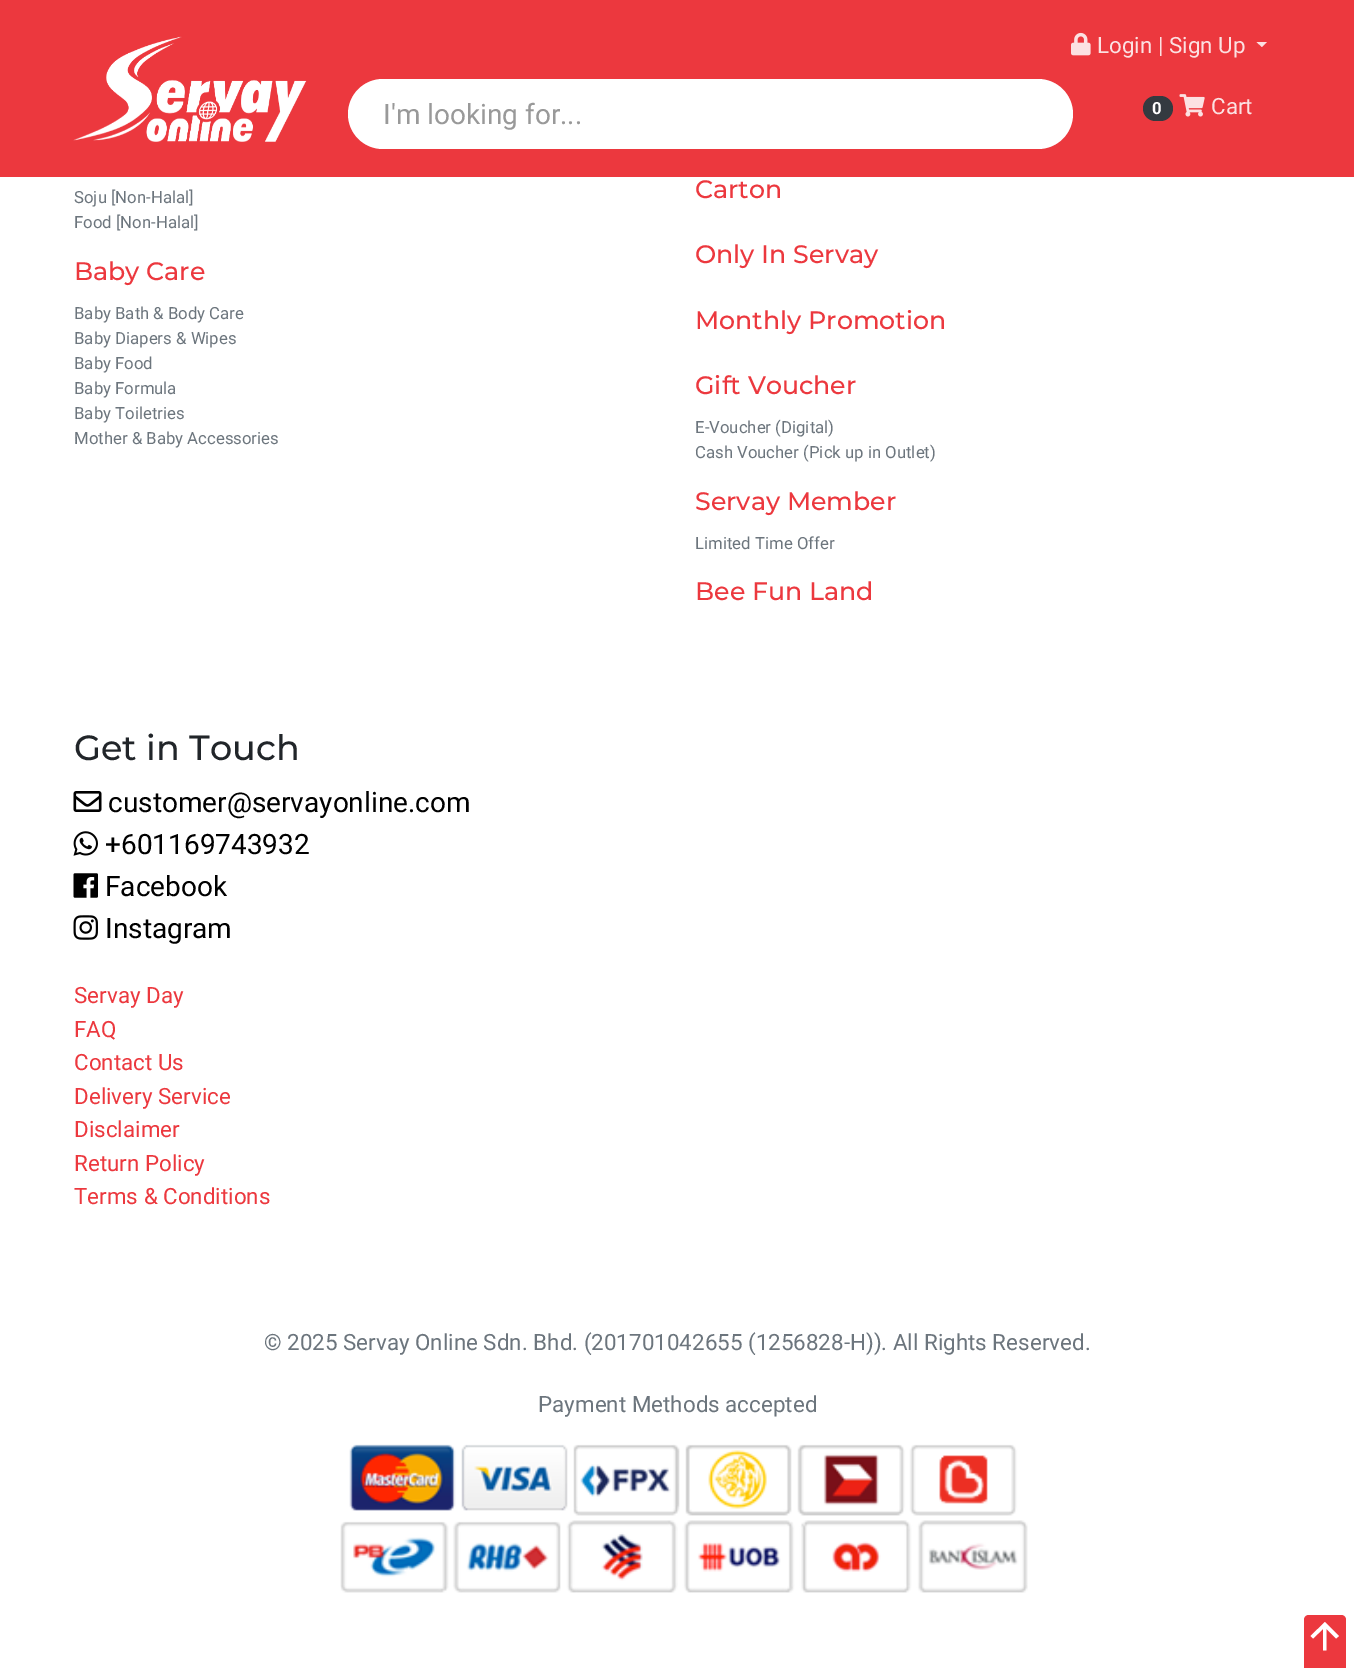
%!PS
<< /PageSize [1354 1668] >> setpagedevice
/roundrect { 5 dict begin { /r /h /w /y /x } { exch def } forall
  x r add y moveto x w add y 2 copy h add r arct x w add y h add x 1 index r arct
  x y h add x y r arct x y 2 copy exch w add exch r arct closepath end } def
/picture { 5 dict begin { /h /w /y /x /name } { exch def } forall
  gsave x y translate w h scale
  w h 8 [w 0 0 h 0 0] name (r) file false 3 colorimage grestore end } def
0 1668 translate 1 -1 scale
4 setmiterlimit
1 setgray
0 0 1354 1668 rectfill
0.925 0.22 0.243 setrgbcolor
0 0 1354 177 rectfill
(img1.rgb) 73 36 234 106 picture
(img2.rgb) 1071 32 20 24 picture
/Roboto-Regular [22.4 0 0 -22.4 0 0] selectfont
0.988 0.882 0.886 setrgbcolor
1097 53 moveto (Login | Sign Up) show
newpath 1256.5 42 moveto 1267 42 lineto 1262 47 lineto closepath fill
1 setgray
348 79 725 70 35 roundrect fill
/Roboto-Regular [28 0 0 -28 0 0] selectfont
0.6 setgray
383 124 moveto (I'm looking for...) show
0.204 0.227 0.251 setrgbcolor
1143 96 30 25 12.5 roundrect fill
/Roboto-Bold [16.75 0 0 -16.75 0 0] selectfont
1 setgray
1152 114 moveto (0) show
(img3.rgb) 1179 94 26 23 picture
/Roboto-Regular [22.4 0 0 -22.4 0 0] selectfont
0.988 0.882 0.886 setrgbcolor
1211 114 moveto (Cart) show
/Roboto-Regular [16.75 0 0 -16.75 0 0] selectfont
0.424 0.459 0.49 setrgbcolor
74 203 moveto (Soju [Non-Halal]) show
74 228 moveto (Food [Non-Halal]) show
/Montserrat-Medium [25.25 0 0 -25.25 0 0] selectfont
0.925 0.22 0.243 setrgbcolor
695 198 moveto (Carton) show
695 263 moveto (Only In Servay) show
74 280 moveto (Baby Care) show
/Roboto-Regular [16.75 0 0 -16.75 0 0] selectfont
0.424 0.459 0.49 setrgbcolor
74 319 moveto (Baby Bath & Body Care) show
74 344 moveto (Baby Diapers & Wipes) show
74 369 moveto (Baby Food) show
74 394 moveto (Baby Formula) show
74 419 moveto (Baby Toiletries) show
74 444 moveto (Mother & Baby Accessories) show
/Montserrat-Medium [25.25 0 0 -25.25 0 0] selectfont
0.925 0.22 0.243 setrgbcolor
695 329 moveto (Monthly Promotion) show
695 394 moveto (Gift Voucher) show
/Roboto-Regular [16.75 0 0 -16.75 0 0] selectfont
0.424 0.459 0.49 setrgbcolor
695 433 moveto (E-Voucher \(Digital\)) show
695 458 moveto (Cash Voucher \(Pick up in Outlet\)) show
/Montserrat-Medium [25.25 0 0 -25.25 0 0] selectfont
0.925 0.22 0.243 setrgbcolor
695 510 moveto (Servay Member) show
/Roboto-Regular [16.75 0 0 -16.75 0 0] selectfont
0.424 0.459 0.49 setrgbcolor
695 549 moveto (Limited Time Offer) show
/Montserrat-Medium [25.25 0 0 -25.25 0 0] selectfont
0.925 0.22 0.243 setrgbcolor
695 600 moveto (Bee Fun Land) show
/Montserrat-Medium [35 0 0 -35 0 0] selectfont
0.129 0.145 0.161 setrgbcolor
74 760 moveto (Get in Touch) show
(img4.rgb) 73 791 29 21 picture
/Roboto-Regular [28 0 0 -28 0 0] selectfont
0 setgray
108 812 moveto (customer@servayonline.com) show
(img5.rgb) 73 831 25 25 picture
105 854 moveto (+601169743932) show
(img6.rgb) 73 873 25 25 picture
105 896 moveto (Facebook) show
(img7.rgb) 73 915 25 25 picture
105 938 moveto (Instagram) show
/Roboto-Regular [22.4 0 0 -22.4 0 0] selectfont
0.925 0.22 0.243 setrgbcolor
74 1003 moveto (Servay Day) show
74 1037 moveto (FAQ) show
74 1070 moveto (Contact Us) show
74 1104 moveto (Delivery Service) show
74 1137 moveto (Disclaimer) show
74 1171 moveto (Return Policy) show
74 1204 moveto (Terms & Conditions) show
0.424 0.459 0.49 setrgbcolor
264 1350 moveto (© 2025 Servay Online Sdn. Bhd. \(201701042655 \(1256828-H\)\). All Rights Reserved.) show
538 1412 moveto (Payment Methods accepted) show
(img8.rgb) 340 1444 688 149 picture
0.925 0.22 0.243 setrgbcolor
newpath 1309 1615 moveto 1341 1615 lineto 1344 1615 1346 1617 1346 1620 curveto 1346 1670 lineto 1304 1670 lineto 1304 1620 lineto 1304 1617 1306 1615 1309 1615 curveto closepath fill
1 setgray
newpath 1310.5 1636 moveto 1325 1622 lineto 1339 1636 lineto 1336 1638.5 lineto 1326.5 1629 lineto 1326.5 1650.5 lineto 1323 1650.5 lineto 1323 1629 lineto 1313 1638.5 lineto closepath fill
showpage
